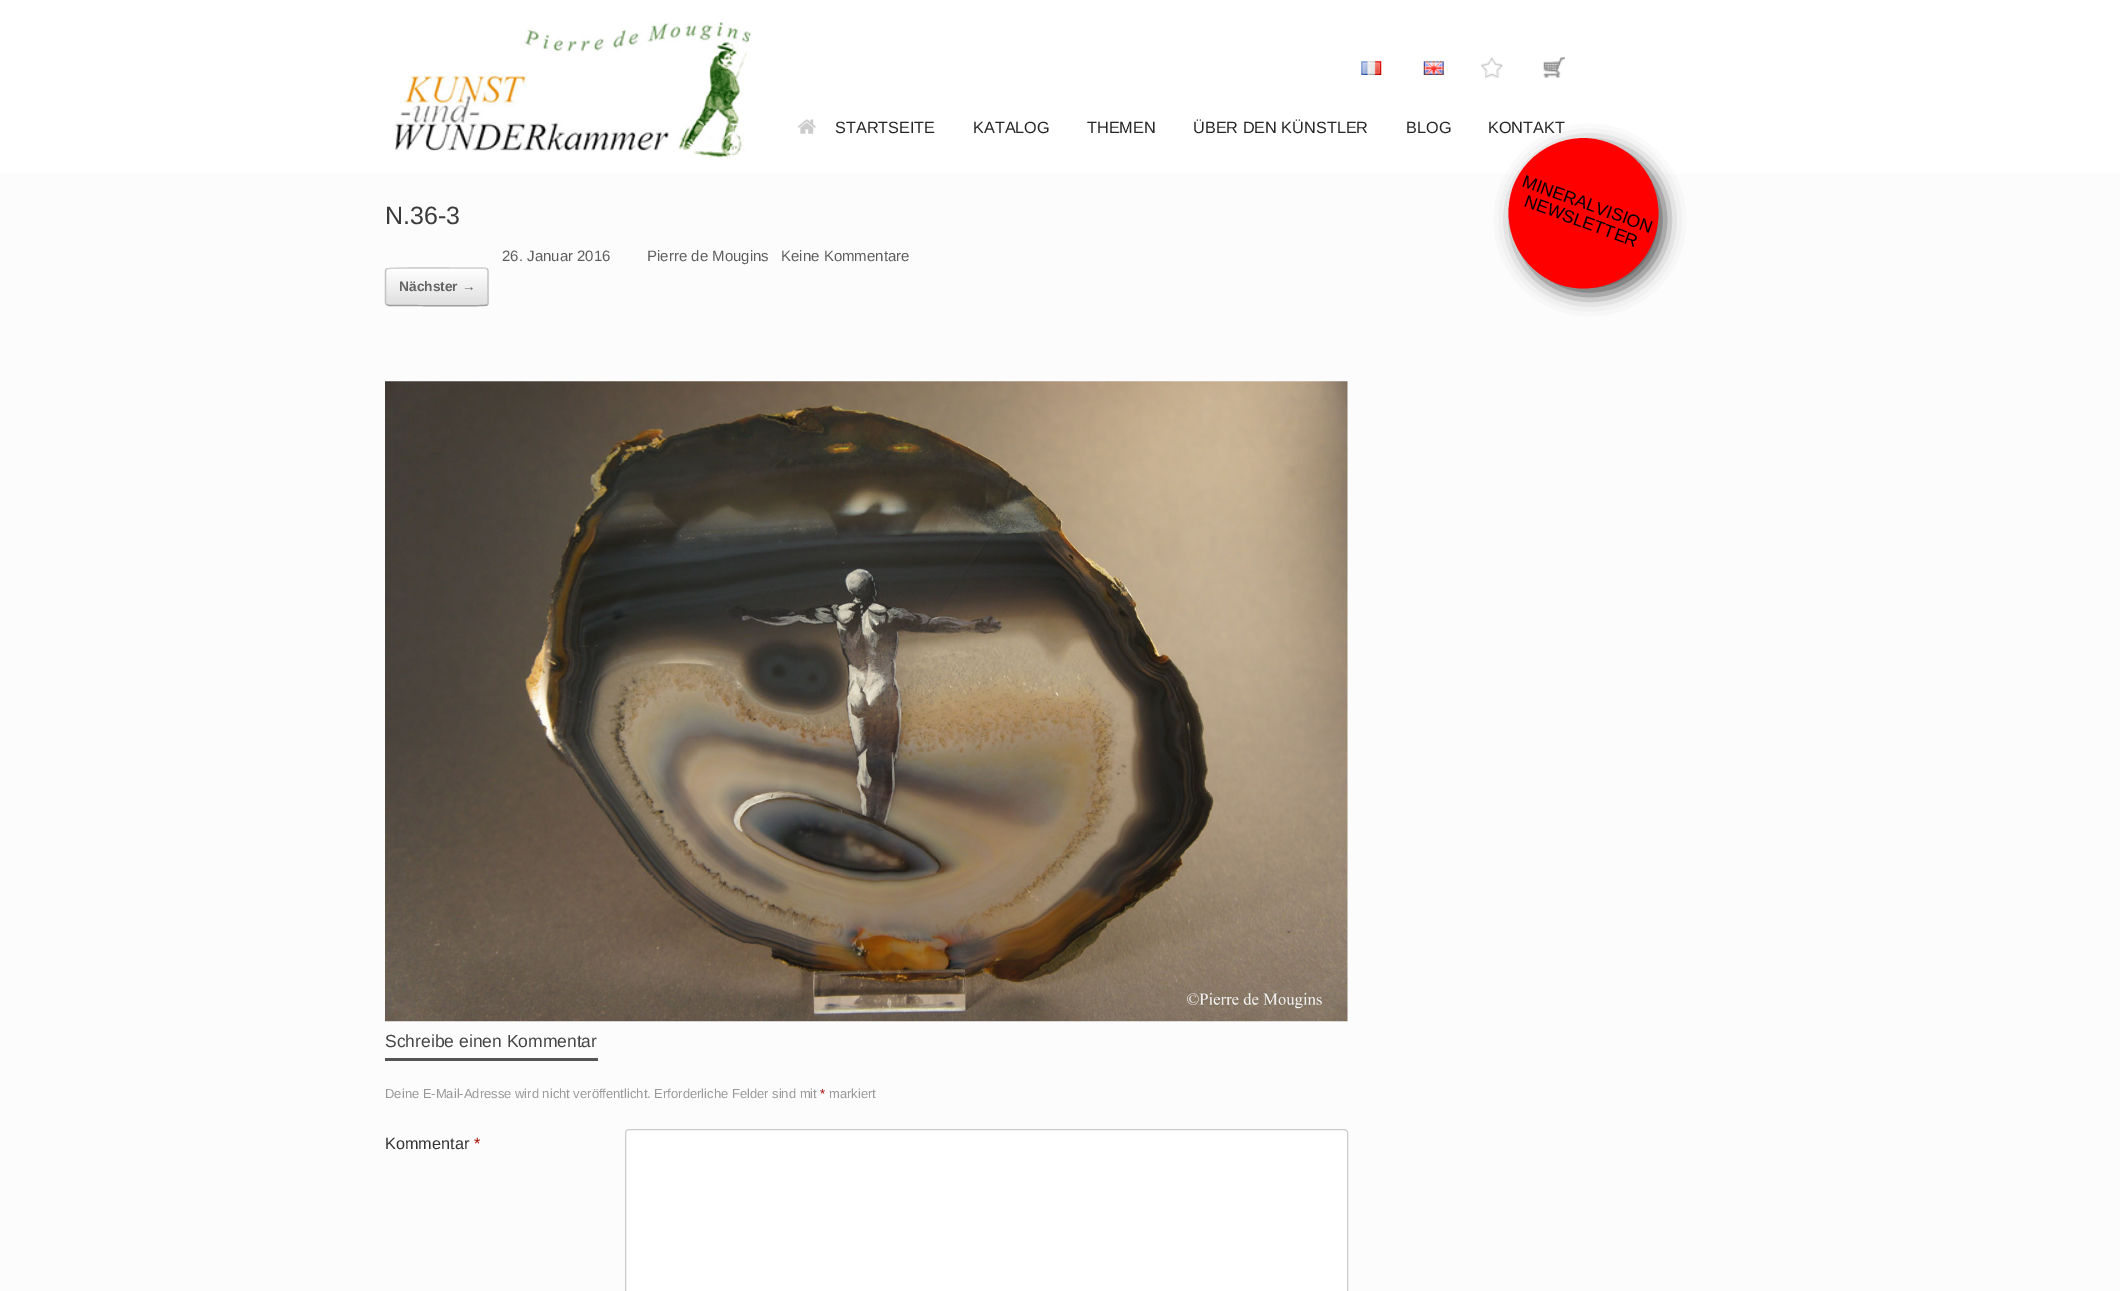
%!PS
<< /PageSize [2120 1291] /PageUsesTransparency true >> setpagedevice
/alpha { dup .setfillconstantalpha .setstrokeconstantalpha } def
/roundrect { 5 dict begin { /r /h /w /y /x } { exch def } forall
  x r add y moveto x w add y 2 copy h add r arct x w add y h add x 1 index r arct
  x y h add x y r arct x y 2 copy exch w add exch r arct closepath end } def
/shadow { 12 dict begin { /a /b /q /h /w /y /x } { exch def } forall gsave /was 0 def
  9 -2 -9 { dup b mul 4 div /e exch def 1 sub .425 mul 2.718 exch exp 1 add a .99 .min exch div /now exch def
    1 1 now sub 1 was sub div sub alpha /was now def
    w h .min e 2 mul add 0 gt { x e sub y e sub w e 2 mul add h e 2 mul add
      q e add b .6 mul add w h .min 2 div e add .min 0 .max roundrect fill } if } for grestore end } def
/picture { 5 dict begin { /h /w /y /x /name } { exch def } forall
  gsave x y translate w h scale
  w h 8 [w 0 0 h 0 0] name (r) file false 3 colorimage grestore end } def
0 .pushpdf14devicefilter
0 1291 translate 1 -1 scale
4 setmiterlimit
0.988 setgray
0 0 2120 1291 rectfill
1 setgray
0 0 2120 174 rectfill
(img1.rgb) 394 22 359 138 picture
(img2.rgb) 1361 61 21 14 picture
(img3.rgb) 1423 61 21 14 picture
(img4.rgb) 1481 57 22 21 picture
(img5.rgb) 1543 57 22 21 picture
(img6.rgb) 797 119 19 15 picture
/LiberationSans-Regular [16.25 0 0 -16.25 0 0] selectfont
0.149 setgray
835 133 moveto (STARTSEITE) show
973 133 moveto (KATALOG) show
1087 133 moveto (THEMEN) show
1193 133 moveto (ÜBER DEN KÜNSTLER) show
1406 133 moveto (BLOG) show
1488 133 moveto (KONTAKT) show
0.333 setgray
1515 145 150 150 75 9.5 1 shadow
1 0 0 setrgbcolor
newpath 1609 143 moveto 1648 157 1668 200 1654 239 curveto 1640 278 1597 298 1558 284 curveto 1519 269 1499 226 1513 187 curveto 1527 149 1571 128 1609 143 curveto closepath fill
/LiberationSans-Regular [17.5 0 0 -17.5 0 0] selectfont
0 setgray
gsave 1521 186 translate 20 rotate 0 0 moveto (MINERALVISION) show grestore
gsave 1523 206 translate 20 rotate 0 0 moveto (NEWSLETTER) show grestore
/LiberationSans-Regular [25 0 0 -25 0 0] selectfont
0.231 setgray
385 224 moveto (N.36-3) show
/LiberationSans-Regular [15 0 0 -15 0 0] selectfont
0.369 setgray
502 261 moveto (26. Januar 2016) show
647 261 moveto (Pierre de Mougins) show
781 261 moveto (Keine Kommentare) show
gsave
385 268 104 38 4 roundrect clip newpath
gsave newpath 385 268 moveto 489 268 lineto 489 269 lineto 385 269 lineto closepath clip newpath
<< /ShadingType 2 /ColorSpace /DeviceRGB /Coords [386 269 386 233] /Extend [true true] /Function << /FunctionType 2 /Domain [0 1] /C0 [0.875 0.875 0.875] /C1 [1 1 1] /N 1 >> >> shfill grestore
gsave newpath 385 269 moveto 489 269 lineto 489 305 lineto 385 305 lineto closepath clip newpath
<< /ShadingType 2 /ColorSpace /DeviceRGB /Coords [386 305 386 269] /Extend [true true] /Function << /FunctionType 2 /Domain [0 1] /C0 [0.875 0.875 0.875] /C1 [1 1 1] /N 1 >> >> shfill grestore
gsave newpath 385 305 moveto 489 305 lineto 489 306 lineto 385 306 lineto closepath clip newpath
<< /ShadingType 2 /ColorSpace /DeviceRGB /Coords [386 341 386 305] /Extend [true true] /Function << /FunctionType 2 /Domain [0 1] /C0 [0.875 0.875 0.875] /C1 [1 1 1] /N 1 >> >> shfill grestore
grestore
0.824 setgray
1.2 setlinewidth
newpath 386.5 269 moveto 387 269 lineto 389 267 460 268 469 268 curveto 485 268 lineto 487 269 lineto stroke
0.765 setgray
newpath 487 269 moveto 488 269.5 488 270.5 488 271 curveto 488 302.5 lineto 488 303.5 488 304 487 304.5 curveto stroke
0.624 setgray
newpath 487 304.5 moveto 487 305 lineto 485 306.5 413.5 305.5 405 305.5 curveto 389 305.5 lineto 386.5 304.5 lineto stroke
0.765 setgray
newpath 386.5 304.5 moveto 386 304 385.5 303.5 385.5 302.5 curveto 385.5 271 lineto 385.5 270.5 386 269.5 386.5 269 curveto stroke
/LiberationSans-Bold [13.75 0 0 -13.75 0 0] selectfont
0.392 setgray
399 291 moveto (Nächster →) show
(img7.rgb) 385 381 963 641 picture
0.333 setgray
385 1058 213 3 rectfill
/LiberationSans-Regular [17.5 0 0 -17.5 0 0] selectfont
0.267 setgray
385 1047 moveto (Schreibe einen Kommentar) show
/LiberationSans-Regular [13 0 0 -13 0 0] selectfont
0.6 setgray
385 1098 moveto (Deine E-Mail-Adresse wird nicht veröffentlicht. Erforderliche Felder sind mit) show
0.643 0.031 0.008 setrgbcolor
820 1098 moveto (*) show
0.6 setgray
829 1098 moveto (markiert) show
/LiberationSans-Regular [16.25 0 0 -16.25 0 0] selectfont
0.2 setgray
385 1149 moveto (Kommentar) show
0.643 0.031 0.008 setrgbcolor
474 1149 moveto (*) show
1 setgray
625.5 1129.5 722 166 3.5 roundrect gsave fill grestore
0.8 setgray
1 setlinewidth
stroke
.poppdf14devicefilter showpage
